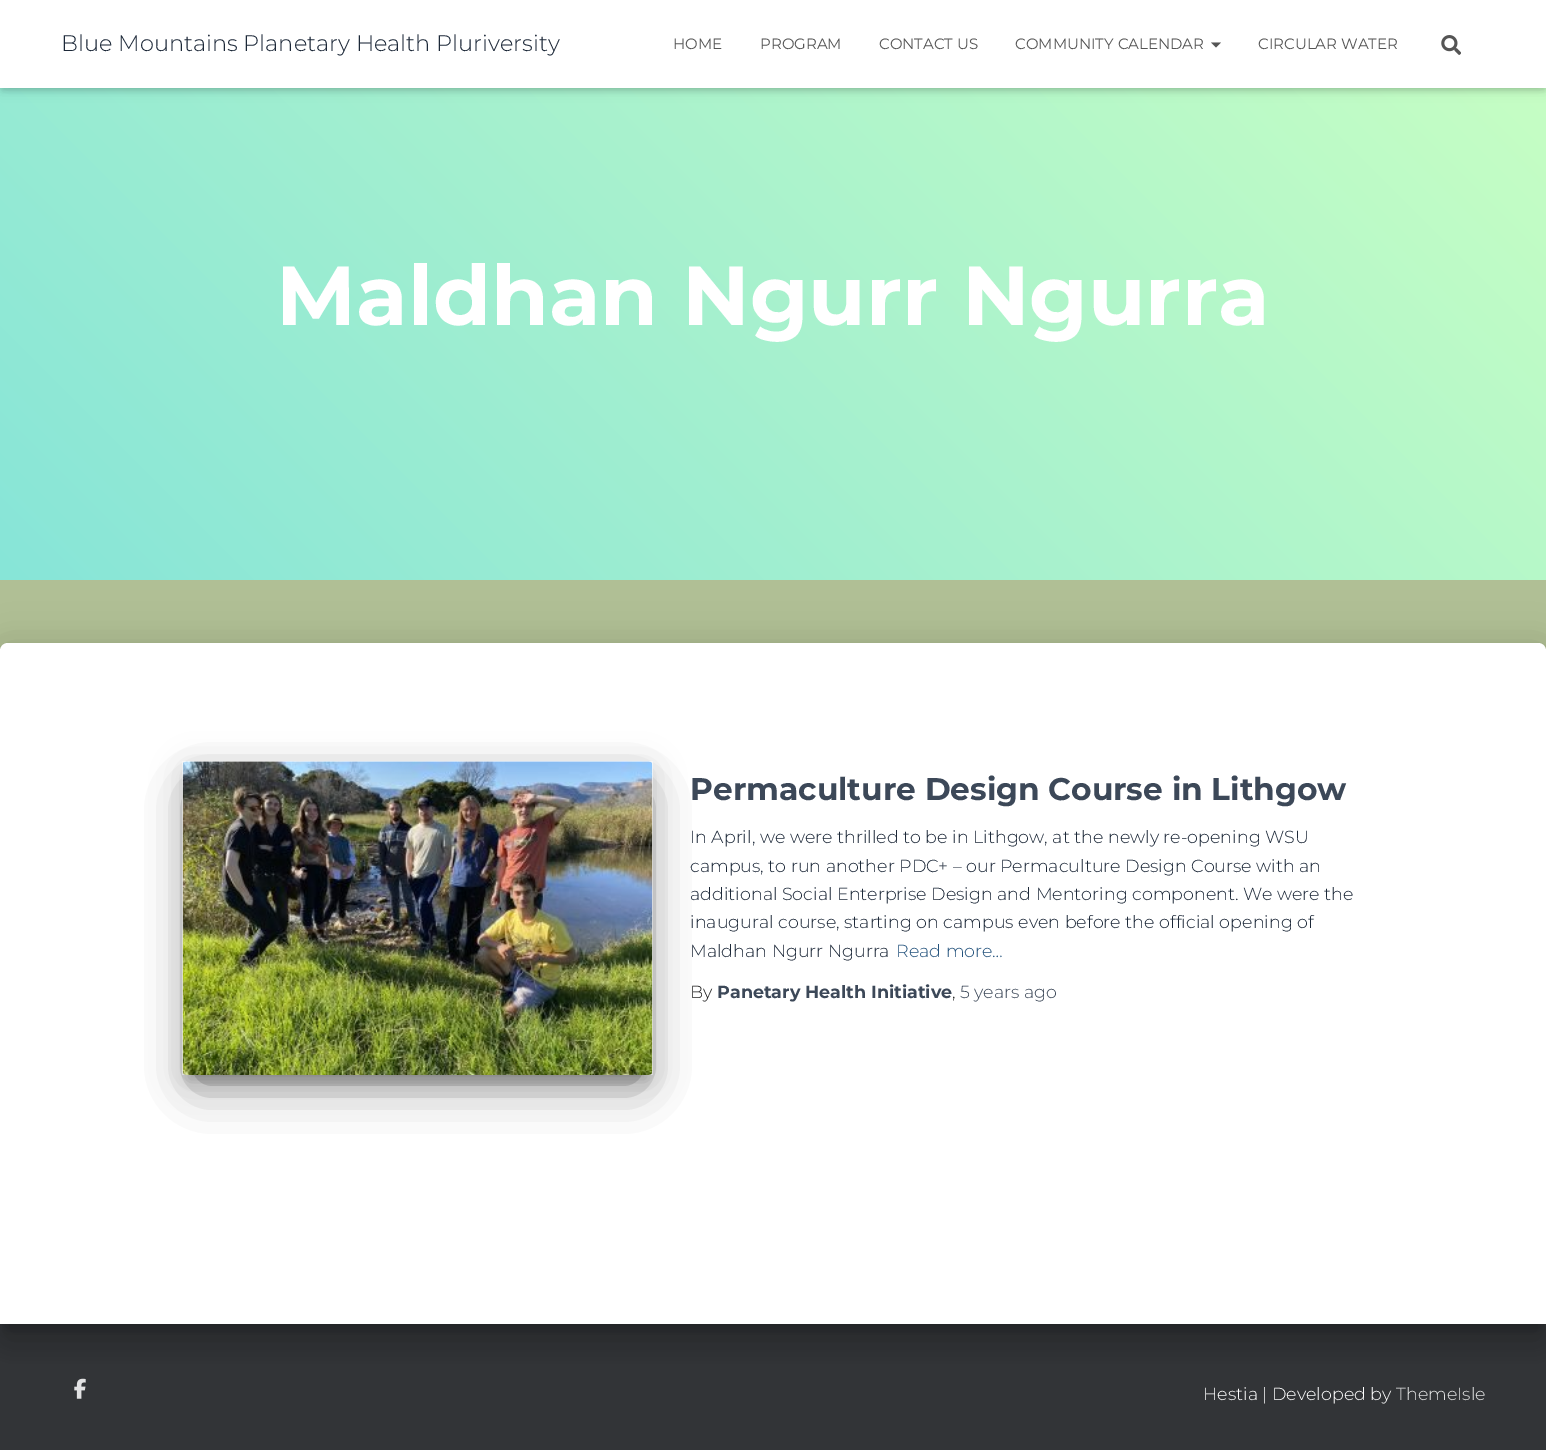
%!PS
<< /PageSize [1546 1450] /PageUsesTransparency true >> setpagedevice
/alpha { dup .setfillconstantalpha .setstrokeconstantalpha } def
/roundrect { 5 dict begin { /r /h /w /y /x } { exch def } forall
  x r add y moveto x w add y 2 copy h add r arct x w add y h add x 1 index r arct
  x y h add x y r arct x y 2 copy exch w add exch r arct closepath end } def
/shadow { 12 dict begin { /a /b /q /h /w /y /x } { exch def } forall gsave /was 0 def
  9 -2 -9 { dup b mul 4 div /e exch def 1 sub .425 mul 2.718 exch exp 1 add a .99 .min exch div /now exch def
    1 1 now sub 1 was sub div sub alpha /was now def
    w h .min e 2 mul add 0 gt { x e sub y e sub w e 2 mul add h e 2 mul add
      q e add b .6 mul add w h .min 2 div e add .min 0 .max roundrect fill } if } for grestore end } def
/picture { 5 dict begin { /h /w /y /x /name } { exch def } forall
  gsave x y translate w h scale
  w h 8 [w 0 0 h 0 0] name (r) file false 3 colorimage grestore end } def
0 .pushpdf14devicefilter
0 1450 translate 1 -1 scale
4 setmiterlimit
0.69 0.749 0.584 setrgbcolor
0 0 1546 1450 rectfill
gsave newpath 0 88 moveto 1546 88 lineto 1546 580 lineto 0 580 lineto closepath clip newpath
<< /ShadingType 2 /ColorSpace /DeviceRGB /Coords [242 822 1305 -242] /Extend [true true] /Function << /FunctionType 2 /Domain [0 1] /C0 [0.529 0.898 0.847] /C1 [0.788 1 0.765] /N 1 >> >> shfill grestore
0 setgray
3 8 1541 82 0 3 0.1 shadow
0 1 1546 88 0 6 0.12 shadow
8 9 1531 72 0 6 0.42 shadow
1 setgray
0 0 1546 88 rectfill
/Montserrat-Light [22.5 0 0 -22.5 0 0] selectfont
0.11 0.157 0.22 setrgbcolor
61 51 moveto (Blue Mountains Planetary Health Pluriversity) show
/Montserrat-Regular [15 0 0 -15 0 0] selectfont
0.333 setgray
673 49 moveto (HOME) show
760 49 moveto (PROGRAM) show
879 49 moveto (CONTACT US) show
1015 49 moveto (COMMUNITY CALENDAR) show
newpath 1211 42.5 moveto 1221 42.5 lineto 1216 47.5 lineto closepath fill
1258 49 moveto (CIRCULAR WATER) show
(img1.rgb) 1441 35 20 20 picture
/Montserrat-Bold [83.75 0 0 -83.75 0 0] selectfont
1 setgray
276 325 moveto (Maldhan Ngurr Ngurra) show
0.196 0.204 0.216 setrgbcolor
0 1324 1546 126 rectfill
0 setgray
6 659 1534 669 1 6 0.2 shadow
-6 644 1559 694 14 19 0.12 shadow
-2 660 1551 686 10 15 0.14 shadow
1 setgray
newpath 8 643 moveto 1538 643 lineto 1542.5 643 1546 646.5 1546 651 curveto 1546 1324 lineto 0 1324 lineto 0 651 lineto 0 646.5 3.5 643 8 643 curveto closepath fill
0 setgray
189 778 457 301 0 6 0.2 shadow
183 766 470 314 4 15.5 0.12 shadow
198 796 440 284 0 24 0.56 shadow
(img2.rgb) 182 761 471 314 picture
/Montserrat-Bold [31.25 0 0 -31.25 0 0] selectfont
0.235 0.282 0.345 setrgbcolor
690 800 moveto (Permaculture Design Course in Lithgow) show
/Montserrat-Light [17.5 0 0 -17.5 0 0] selectfont
0.11 0.157 0.22 setrgbcolor
690 843 moveto (In April, we were thrilled to be in Lithgow, at the newly re-opening WSU) show
690 872 moveto (campus, to run another PDC+ – our Permaculture Design Course with an) show
690 900 moveto (additional Social Enterprise Design and Mentoring component. We were the) show
690 928 moveto (inaugural course, starting on campus even before the official opening of) show
690 957 moveto (Maldhan Ngurr Ngurra) show
0.137 0.322 0.486 setrgbcolor
896 957 moveto (Read more…) show
0.129 setgray
690 998 moveto (By) show
/Montserrat-Bold [17.5 0 0 -17.5 0 0] selectfont
0.235 0.282 0.345 setrgbcolor
717 998 moveto (Panetary Health Initiative) show
/Montserrat-Light [17.5 0 0 -17.5 0 0] selectfont
0.129 setgray
952 998 moveto (,) show
0.235 0.282 0.345 setrgbcolor
960 998 moveto (5 years ago) show
(img3.rgb) 74 1378 12 21 picture
1 setgray
1203 1400 moveto (Hestia | Developed by) show
0.886 0.89 0.89 setrgbcolor
1396 1400 moveto (ThemeIsle) show
.poppdf14devicefilter showpage
